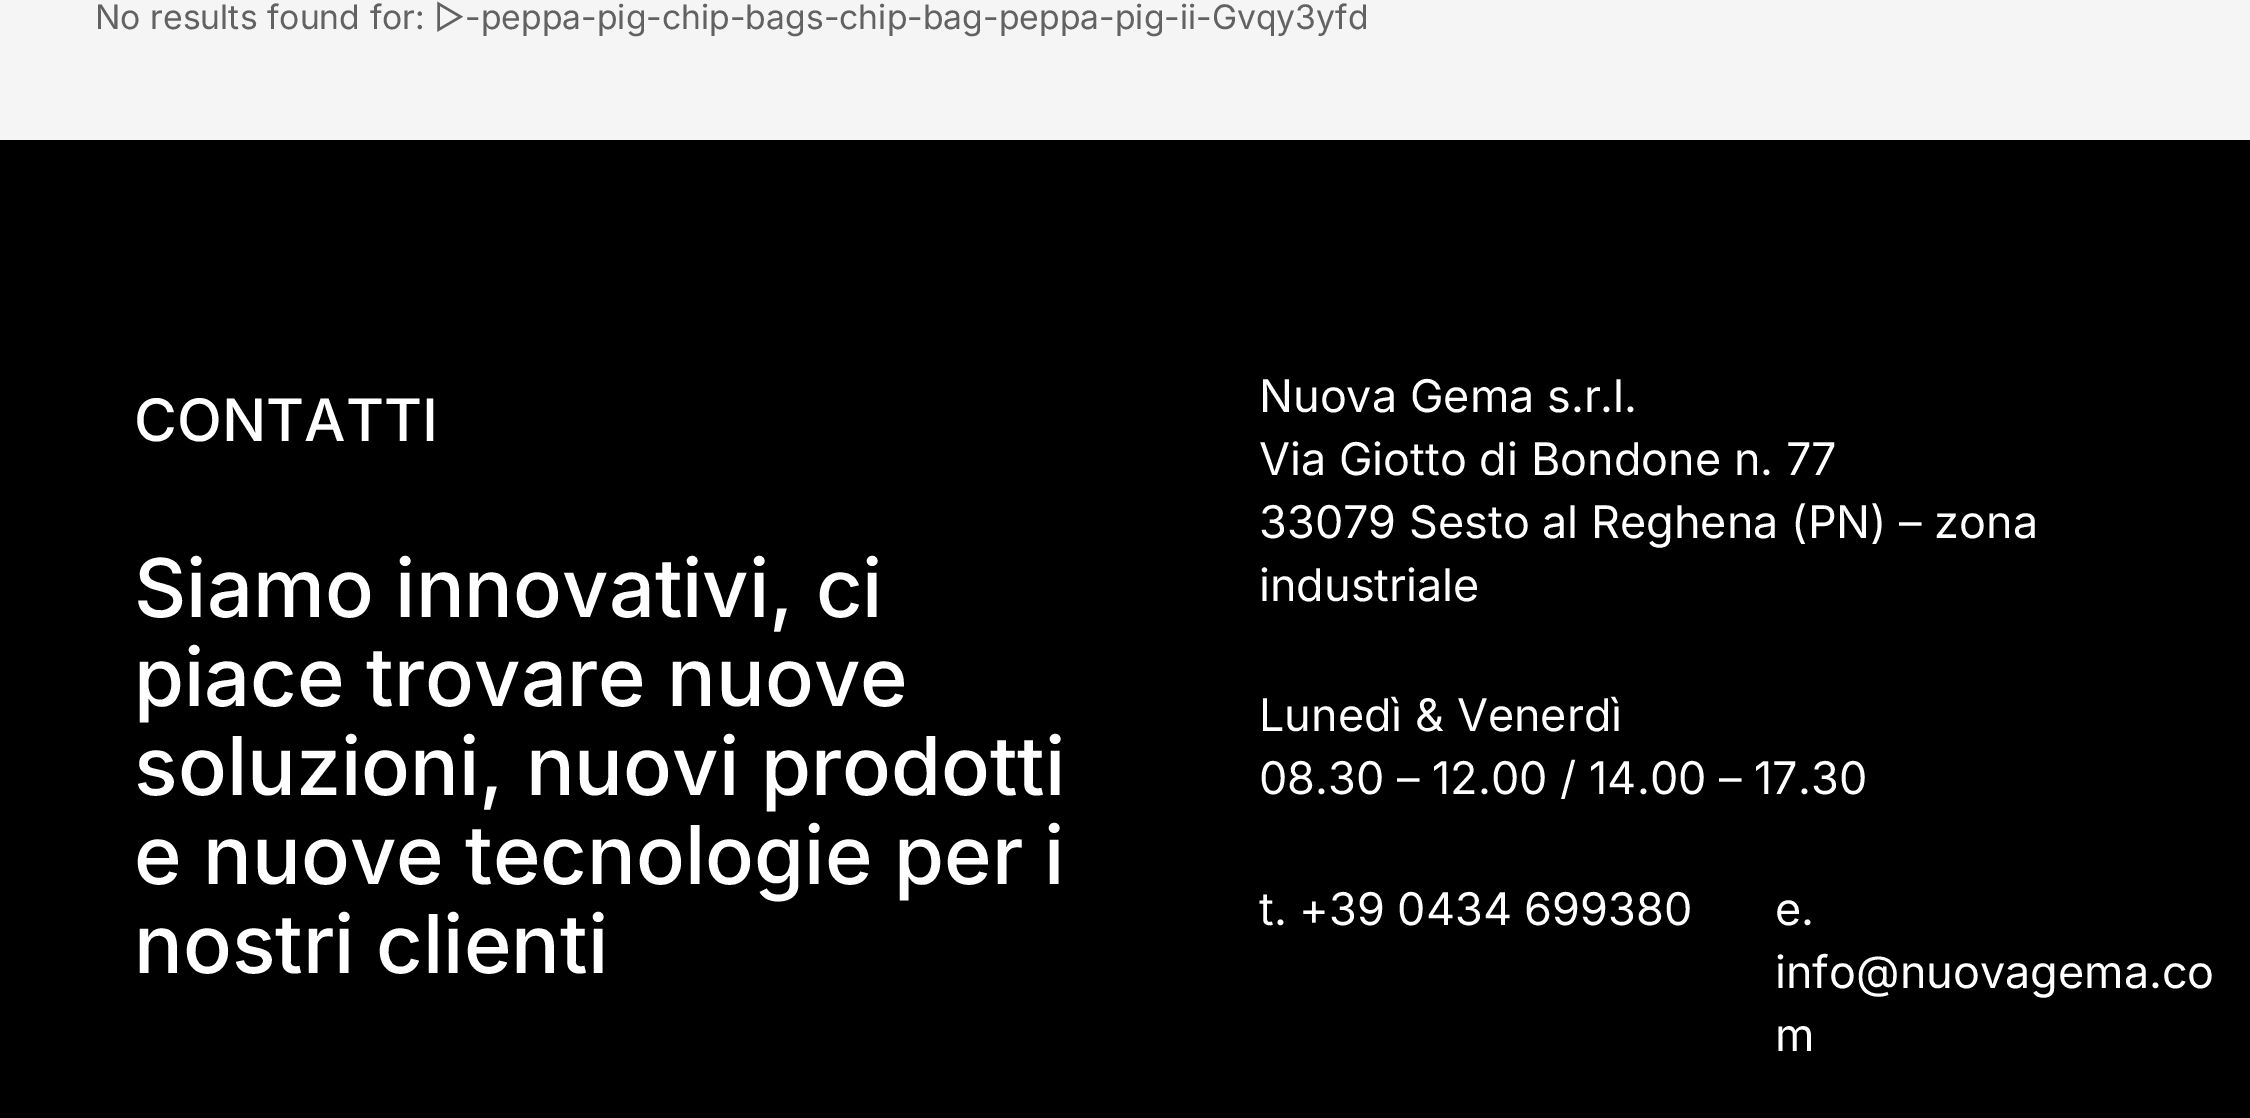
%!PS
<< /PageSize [2250 1118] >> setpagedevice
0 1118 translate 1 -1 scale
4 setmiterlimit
0.961 setgray
0 0 2250 1118 rectfill
/Inter-Regular [33.75 0 0 -33.75 0 0] selectfont
0.384 setgray
95 29 moveto (No results found for: ▷-peppa-pig-chip-bags-chip-bag-peppa-pig-ii-Gvqy3yfd) show
0 setgray
0 140 2250 978 rectfill
/Inter-Medium [58.5 0 0 -58.5 0 0] selectfont
1 setgray
134 441 moveto (CONTATTI) show
/Inter-Medium [81 0 0 -81 0 0] selectfont
134 617 moveto (Siamo innovativi, ci) show
134 706 moveto (piace trovare nuove) show
134 795 moveto (soluzioni, nuovi prodotti) show
134 884 moveto (e nuove tecnologie per i) show
134 973 moveto (nostri clienti) show
/Inter-Regular [45 0 0 -45 0 0] selectfont
1259 412 moveto (Nuova Gema s.r.l.) show
1259 475 moveto (Via Giotto di Bondone n. 77) show
1259 538 moveto (33079 Sesto al Reghena \(PN\) – zona) show
1259 601 moveto (industriale) show
1259 731 moveto (Lunedì & Venerdì) show
1259 794 moveto (08.30 – 12.00 / 14.00 – 17.30) show
1259 925 moveto (t. +39 0434 699380) show
1775 925 moveto (e.) show
1775 988 moveto (info@nuovagema.co) show
1775 1051 moveto (m) show
showpage
